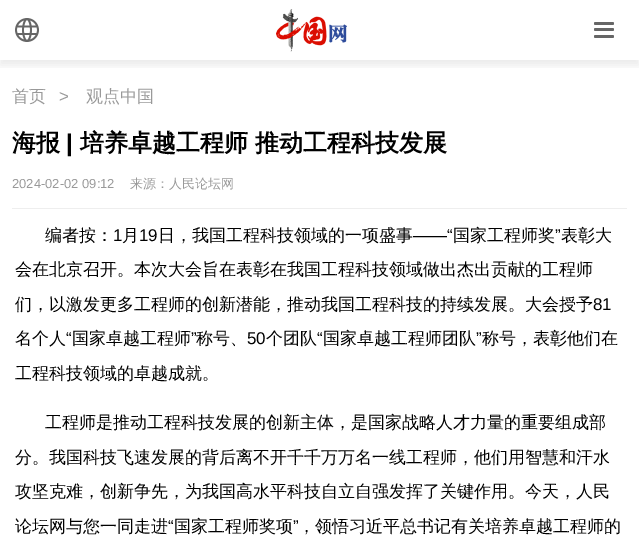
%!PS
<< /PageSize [639 553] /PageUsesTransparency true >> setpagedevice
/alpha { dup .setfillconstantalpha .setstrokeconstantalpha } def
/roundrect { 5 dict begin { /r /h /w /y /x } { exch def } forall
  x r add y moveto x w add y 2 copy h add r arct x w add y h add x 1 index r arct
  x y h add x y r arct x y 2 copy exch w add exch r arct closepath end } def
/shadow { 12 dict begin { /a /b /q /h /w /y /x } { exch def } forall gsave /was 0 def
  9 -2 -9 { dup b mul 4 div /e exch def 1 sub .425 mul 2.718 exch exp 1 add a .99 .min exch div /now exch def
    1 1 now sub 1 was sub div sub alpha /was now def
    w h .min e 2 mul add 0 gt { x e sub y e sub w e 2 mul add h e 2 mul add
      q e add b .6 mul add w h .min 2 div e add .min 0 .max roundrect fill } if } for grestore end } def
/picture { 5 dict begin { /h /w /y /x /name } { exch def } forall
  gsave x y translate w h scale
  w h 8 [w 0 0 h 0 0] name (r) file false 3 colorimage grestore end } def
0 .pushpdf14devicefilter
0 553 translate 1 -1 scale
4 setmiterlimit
1 setgray
0 0 639 553 rectfill
gsave
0 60 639 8 rectclip
0 setgray
0 5 639 60 0 4.5 0.08 shadow
grestore
(img1.rgb) 15 18 24 24 picture
(img2.rgb) 276 9 71 43 picture
0.4 setgray
594 22 20 3 1.5 roundrect fill
594 28 20 3 1.5 roundrect fill
594 35 20 3 1.5 roundrect fill
/WenQuanYiZenHei-Medium [17 0 0 -17 0 0] selectfont
0.6 setgray
12 102 moveto (首页) show
/LiberationSans-Regular [17 0 0 -17 0 0] selectfont
59 102 moveto (>) show
/WenQuanYiZenHei-Medium [17 0 0 -17 0 0] selectfont
86 102 moveto (观点中国) show
/WenQuanYiZenHei-Bold [24 0 0 -24 0 0] selectfont
0 setgray
12 151 moveto (海报) show
/LiberationSans-Bold [24 0 0 -24 0 0] selectfont
66 151 moveto (|) show
/WenQuanYiZenHei-Bold [24 0 0 -24 0 0] selectfont
80 151 moveto (培养卓越工程师 推动工程科技发展) show
0.933 setgray
12 208 615 1 rectfill
/LiberationSans-Regular [13 0 0 -13 0 0] selectfont
0.6 setgray
12 188 moveto (2024-02-02 09:12) show
/WenQuanYiZenHei-Medium [13 0 0 -13 0 0] selectfont
130 188 moveto (来源：人民论坛网) show
/WenQuanYiZenHei-Medium [17 0 0 -17 0 0] selectfont
0 setgray
45 241 moveto (编者按：) show
/LiberationSans-Regular [17 0 0 -17 0 0] selectfont
113 241 moveto (1) show
/WenQuanYiZenHei-Medium [17 0 0 -17 0 0] selectfont
122 241 moveto (月) show
/LiberationSans-Regular [17 0 0 -17 0 0] selectfont
139 241 moveto (19) show
/WenQuanYiZenHei-Medium [17 0 0 -17 0 0] selectfont
158 241 moveto (日，我国工程科技领域的一项盛事) show
/LiberationSans-Regular [17 0 0 -17 0 0] selectfont
413 241 moveto (——“) show
/WenQuanYiZenHei-Medium [17 0 0 -17 0 0] selectfont
453 241 moveto (国家工程师奖) show
/LiberationSans-Regular [17 0 0 -17 0 0] selectfont
555 241 moveto (”) show
/WenQuanYiZenHei-Medium [17 0 0 -17 0 0] selectfont
561 241 moveto (表彰大) show
15 275 moveto (会在北京召开。本次大会旨在表彰在我国工程科技领域做出杰出贡献的工程师) show
15 310 moveto (们，以激发更多工程师的创新潜能，推动我国工程科技的持续发展。大会授予) show
/LiberationSans-Regular [17 0 0 -17 0 0] selectfont
593 310 moveto (81) show
/WenQuanYiZenHei-Medium [17 0 0 -17 0 0] selectfont
15 344 moveto (名个人) show
/LiberationSans-Regular [17 0 0 -17 0 0] selectfont
66 344 moveto (“) show
/WenQuanYiZenHei-Medium [17 0 0 -17 0 0] selectfont
72 344 moveto (国家卓越工程师) show
/LiberationSans-Regular [17 0 0 -17 0 0] selectfont
191 344 moveto (”) show
/WenQuanYiZenHei-Medium [17 0 0 -17 0 0] selectfont
196 344 moveto (称号、) show
/LiberationSans-Regular [17 0 0 -17 0 0] selectfont
247 344 moveto (50) show
/WenQuanYiZenHei-Medium [17 0 0 -17 0 0] selectfont
266 344 moveto (个团队) show
/LiberationSans-Regular [17 0 0 -17 0 0] selectfont
317 344 moveto (“) show
/WenQuanYiZenHei-Medium [17 0 0 -17 0 0] selectfont
323 344 moveto (国家卓越工程师团队) show
/LiberationSans-Regular [17 0 0 -17 0 0] selectfont
476 344 moveto (”) show
/WenQuanYiZenHei-Medium [17 0 0 -17 0 0] selectfont
482 344 moveto (称号，表彰他们在) show
15 379 moveto (工程科技领域的卓越成就。) show
45 428 moveto (工程师是推动工程科技发展的创新主体，是国家战略人才力量的重要组成部) show
15 463 moveto (分。我国科技飞速发展的背后离不开千千万万名一线工程师，他们用智慧和汗水) show
15 497 moveto (攻坚克难，创新争先，为我国高水平科技自立自强发挥了关键作用。今天，人民) show
15 532 moveto (论坛网与您一同走进) show
/LiberationSans-Regular [17 0 0 -17 0 0] selectfont
168 532 moveto (“) show
/WenQuanYiZenHei-Medium [17 0 0 -17 0 0] selectfont
174 532 moveto (国家工程师奖项) show
/LiberationSans-Regular [17 0 0 -17 0 0] selectfont
293 532 moveto (”) show
/WenQuanYiZenHei-Medium [17 0 0 -17 0 0] selectfont
298 532 moveto (，领悟习近平总书记有关培养卓越工程师的) show
.poppdf14devicefilter showpage
